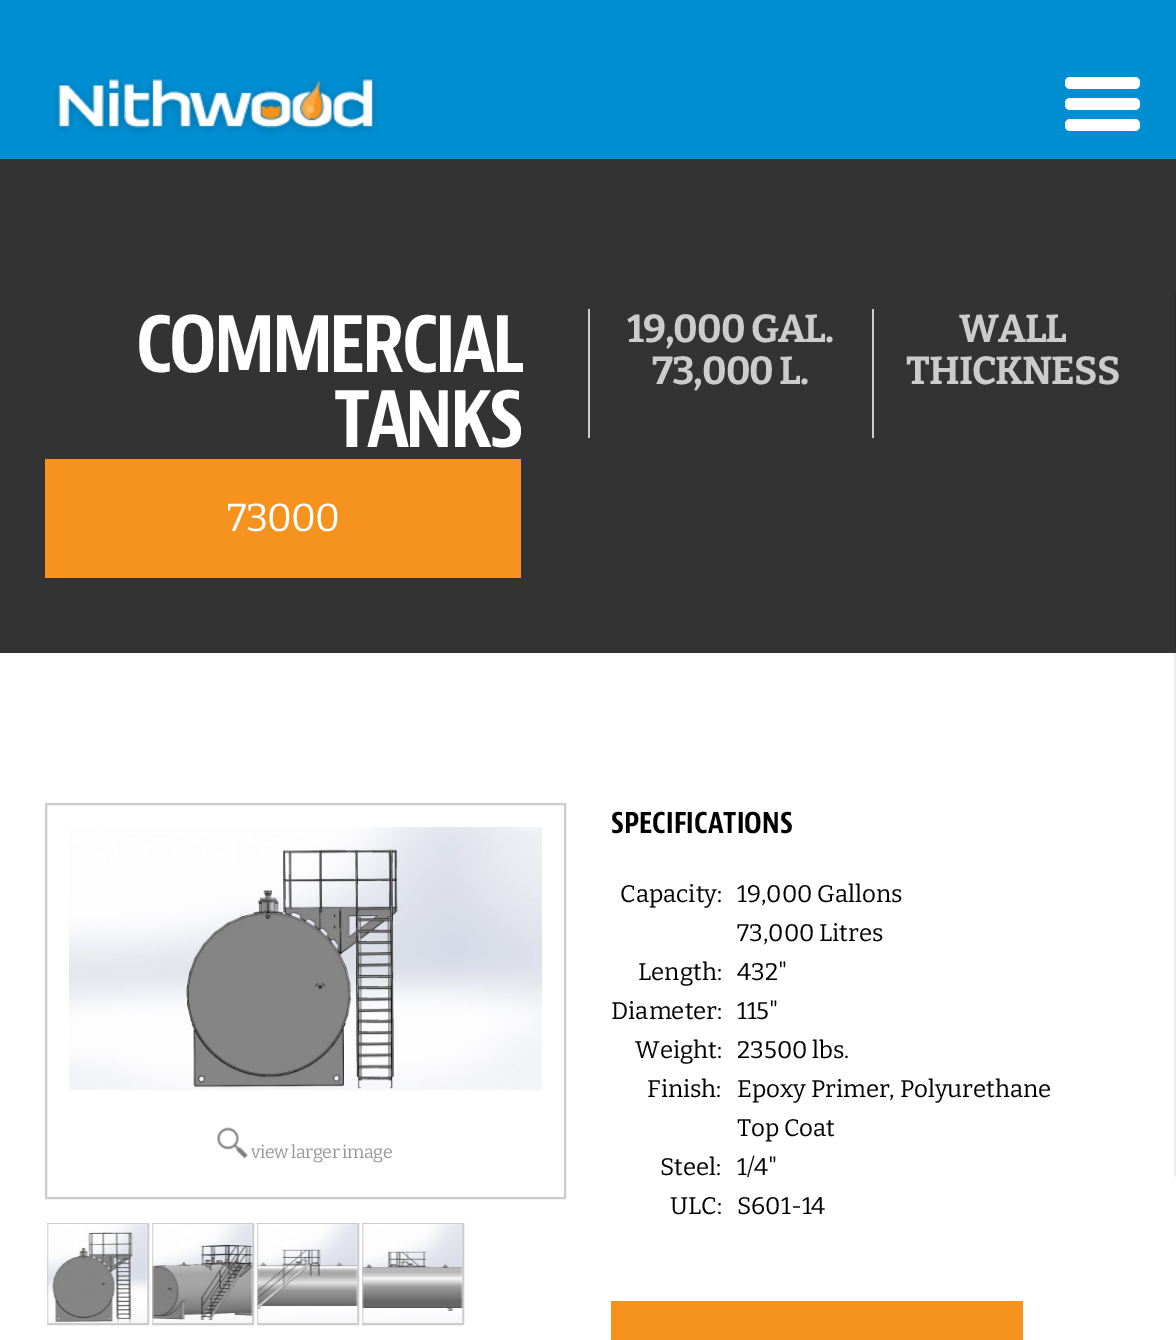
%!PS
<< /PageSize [1176 1340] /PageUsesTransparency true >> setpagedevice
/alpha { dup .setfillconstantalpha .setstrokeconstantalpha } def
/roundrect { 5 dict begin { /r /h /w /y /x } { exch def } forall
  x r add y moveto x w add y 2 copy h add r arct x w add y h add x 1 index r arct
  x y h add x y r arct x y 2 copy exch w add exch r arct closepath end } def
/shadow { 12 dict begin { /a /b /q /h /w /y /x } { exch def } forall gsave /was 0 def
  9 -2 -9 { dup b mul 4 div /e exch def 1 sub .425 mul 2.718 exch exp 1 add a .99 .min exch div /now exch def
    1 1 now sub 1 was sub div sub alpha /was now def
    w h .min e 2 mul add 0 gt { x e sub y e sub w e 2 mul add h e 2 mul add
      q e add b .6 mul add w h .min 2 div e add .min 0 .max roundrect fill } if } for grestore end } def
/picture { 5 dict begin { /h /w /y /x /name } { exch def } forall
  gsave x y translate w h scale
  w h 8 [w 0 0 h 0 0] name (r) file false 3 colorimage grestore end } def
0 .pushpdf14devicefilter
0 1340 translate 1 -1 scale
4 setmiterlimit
1 setgray
0 0 1176 1340 rectfill
0 0.557 0.827 setrgbcolor
0 0 1176 159 rectfill
(img1.rgb) 53 77 324 57 picture
1 setgray
1065 77 75 12 5 roundrect fill
1065 98 75 12 5 roundrect fill
1065 119 75 12 5 roundrect fill
0.2 setgray
0 159 1176 494 rectfill
0 setgray
1176 293 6 882 0 2 0.2 shadow
/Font-Bold [81 0 0 -81 0 0] selectfont
1 setgray
136 372 moveto -3.25 0 (COMMERCIAL) ashow
334 447 moveto -3.25 0 (TANKS) ashow
0.965 0.573 0.118 setrgbcolor
45 459 476 119 rectfill
/Bitter-Regular [39 0 0 -39 0 0] selectfont
1 setgray
227 531 moveto -1 0 (73000) ashow
0.8 setgray
588 309 2 129 rectfill
/Bitter-Bold [39 0 0 -39 0 0] selectfont
627 342 moveto -1 0 (19,000 GAL.) ashow
652 384 moveto -1 0 (73,000 L.) ashow
872 309 2 129 rectfill
959 342 moveto -1 0 (WALL) ashow
906 384 moveto -1 0 (THICKNESS) ashow
2 setlinewidth
46 804 519 394 rectstroke
(img2.rgb) 69 827 473 264 picture
(img3.rgb) 217 1127 31 32 picture
/Bitter-Regular [18 0 0 -18 0 0] selectfont
0.6 setgray
251 1158 moveto -0.5 0 (view larger image) ashow
0.8 setgray
48 1224 100 100 rectstroke
(img4.rgb) 47 1224 101 99 picture
153 1224 100 100 rectstroke
(img5.rgb) 152 1224 101 99 picture
258 1224 100 100 rectstroke
(img6.rgb) 257 1224 101 99 picture
363 1224 100 100 rectstroke
(img7.rgb) 362 1224 101 99 picture
/Font-Bold [30 0 0 -30 0 0] selectfont
0 setgray
611 833 moveto (SPECIFICATIONS) show
/Bitter-Regular [24 0 0 -24 0 0] selectfont
620 902 moveto (Capacity:) show
737 902 moveto (19,000 Gallons) show
737 941 moveto (73,000 Litres) show
638 980 moveto (Length:) show
737 980 moveto (432") show
611 1019 moveto (Diameter:) show
737 1019 moveto (115") show
635 1058 moveto (Weight:) show
737 1058 moveto (23500 lbs.) show
647 1097 moveto (Finish:) show
737 1097 moveto (Epoxy Primer, Polyurethane) show
737 1136 moveto (Top Coat) show
660 1175 moveto (Steel:) show
737 1175 moveto (1/4") show
670 1214 moveto (ULC:) show
737 1214 moveto (S601-14) show
0.965 0.573 0.118 setrgbcolor
611 1301 412 39 rectfill
.poppdf14devicefilter showpage
